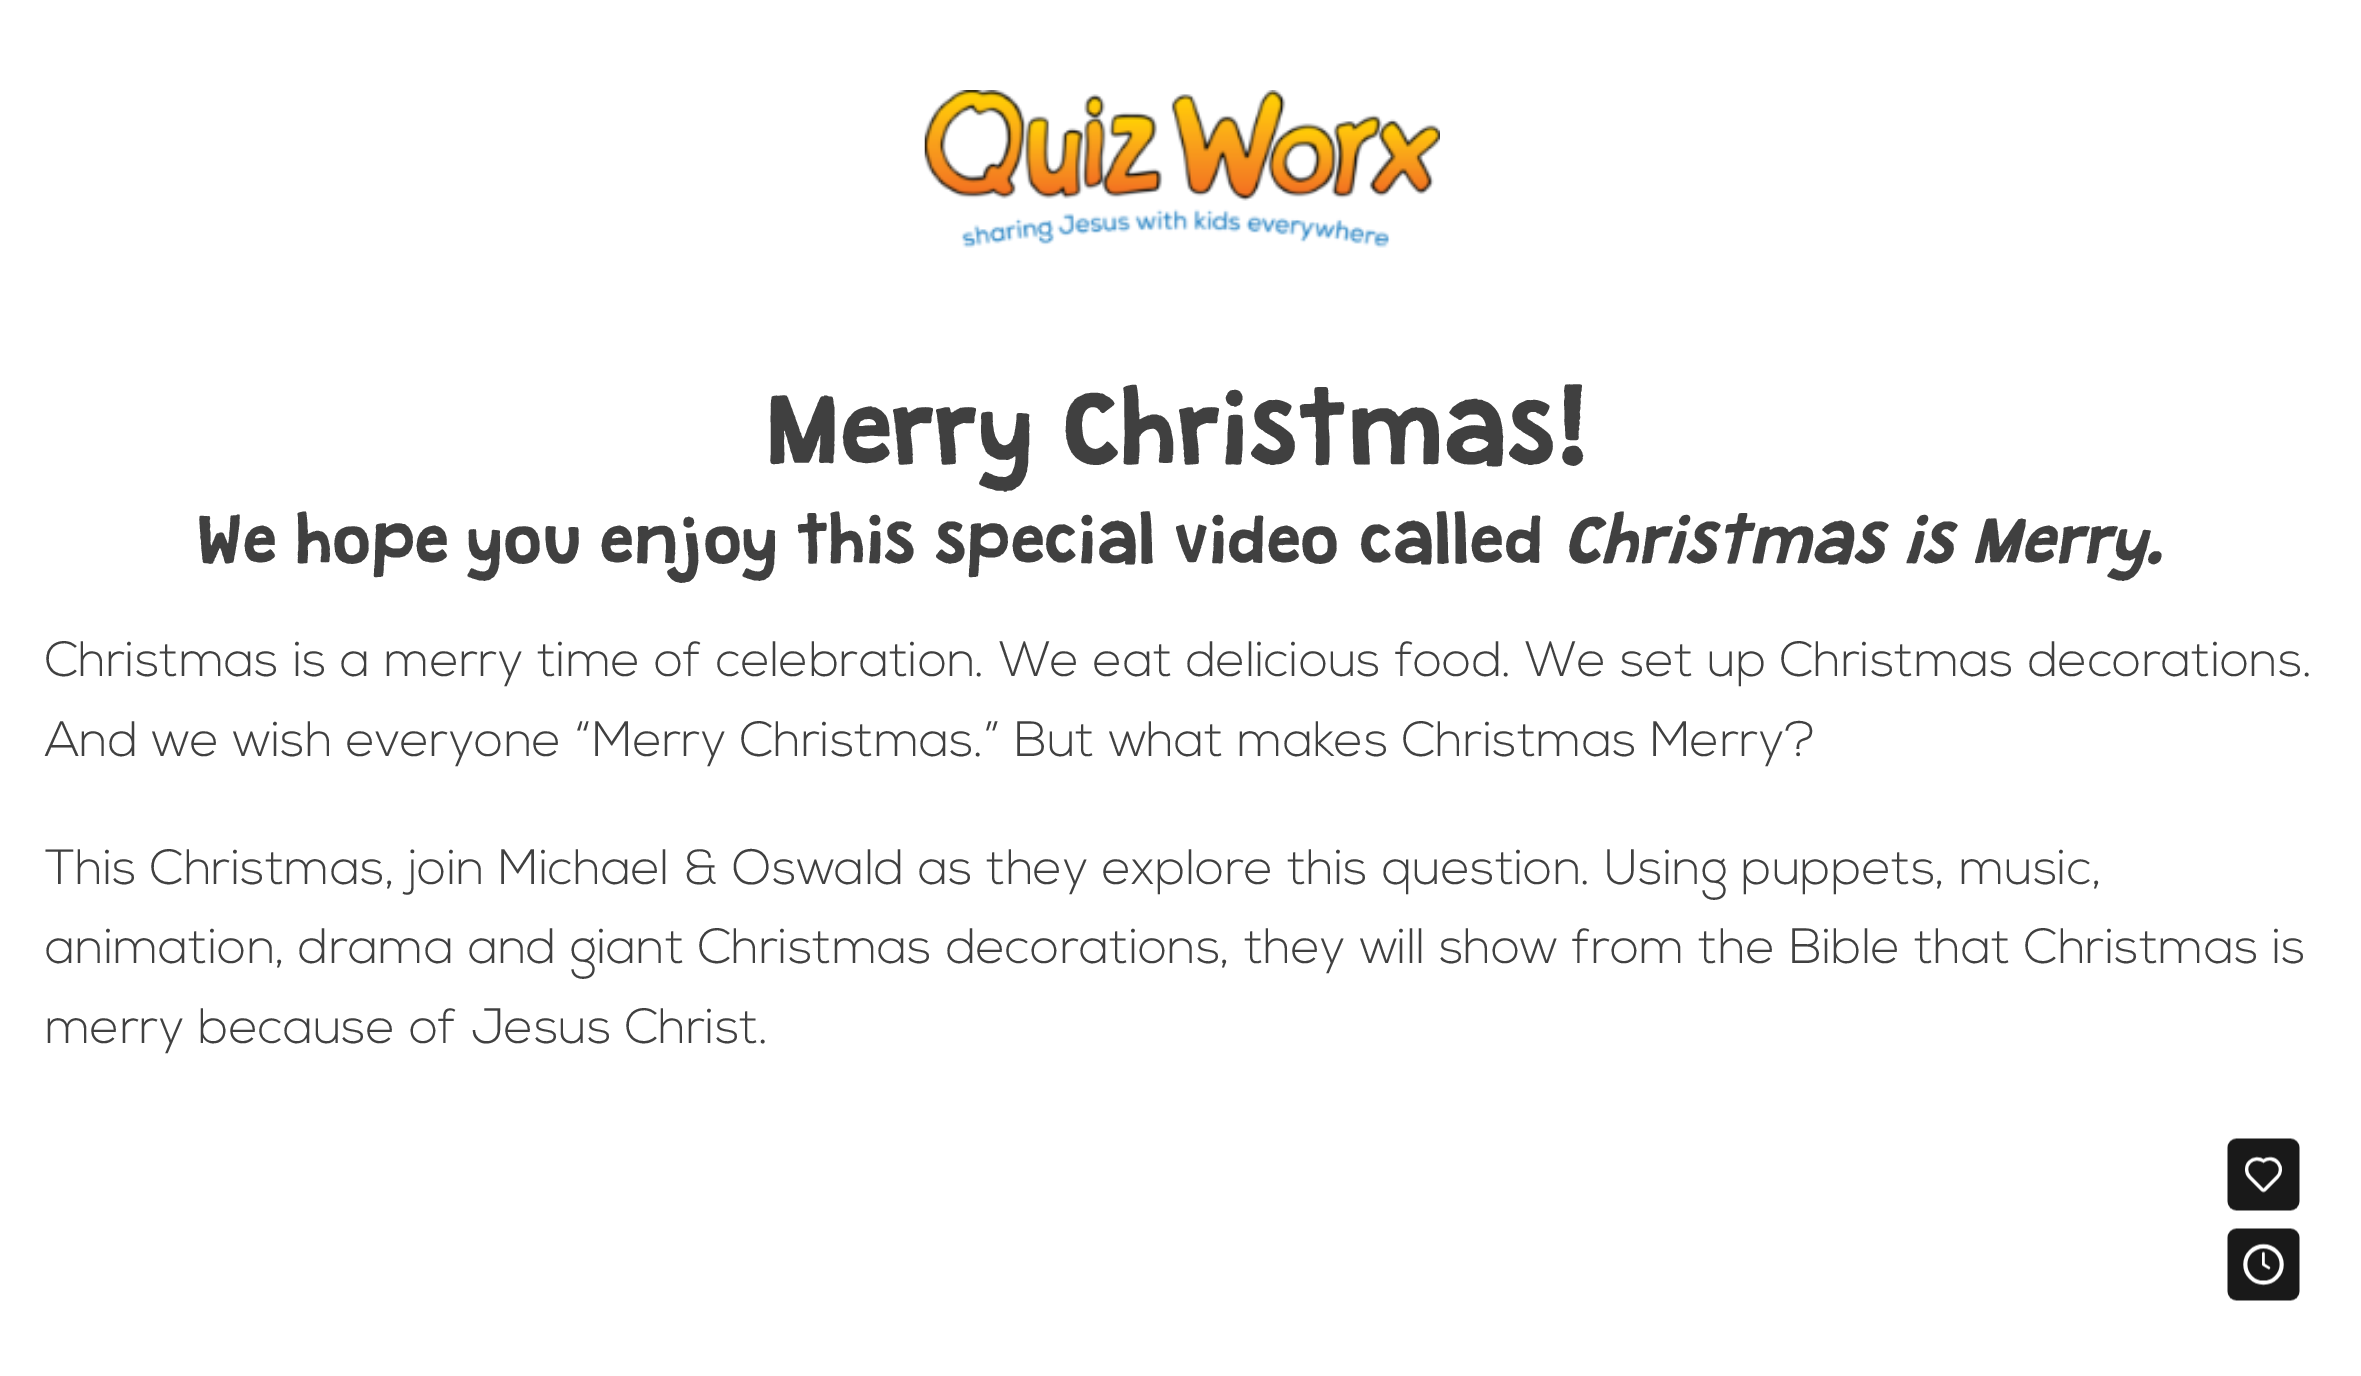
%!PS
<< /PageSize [2361 1376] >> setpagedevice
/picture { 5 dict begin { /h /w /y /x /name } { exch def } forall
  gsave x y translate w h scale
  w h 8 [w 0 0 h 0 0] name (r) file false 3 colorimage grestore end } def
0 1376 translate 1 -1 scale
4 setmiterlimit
1 setgray
0 0 2361 1376 rectfill
(img1.rgb) 924 90 516 158 picture
/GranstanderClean-Regular [90 0 0 -90 0 0] selectfont
0.251 setgray
768 464 moveto (Merry Christmas!) show
/GranstanderClean-Regular [58.5 0 0 -58.5 0 0] selectfont
198 563 moveto (We hope you enjoy this special video called) show
/GranstanderClean-Italic [58.5 0 0 -58.5 0 0] selectfont
1563 563 moveto (Christmas is Merry.) show
/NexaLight-Light [49.5 0 0 -49.5 0 0] selectfont
45 676 moveto (Christmas is a merry time of celebration. We eat delicious food. We set up Christmas decorations.) show
45 756 moveto (And we wish everyone “Merry Christmas.” But what makes Christmas Merry?) show
45 884 moveto (This Christmas, join Michael & Oswald as they explore this question. Using puppets, music,) show
45 963 moveto (animation, drama and giant Christmas decorations, they will show from the Bible that Christmas is) show
45 1043 moveto (merry because of Jesus Christ.) show
(img2.rgb) 2227 1138 73 163 picture
showpage
